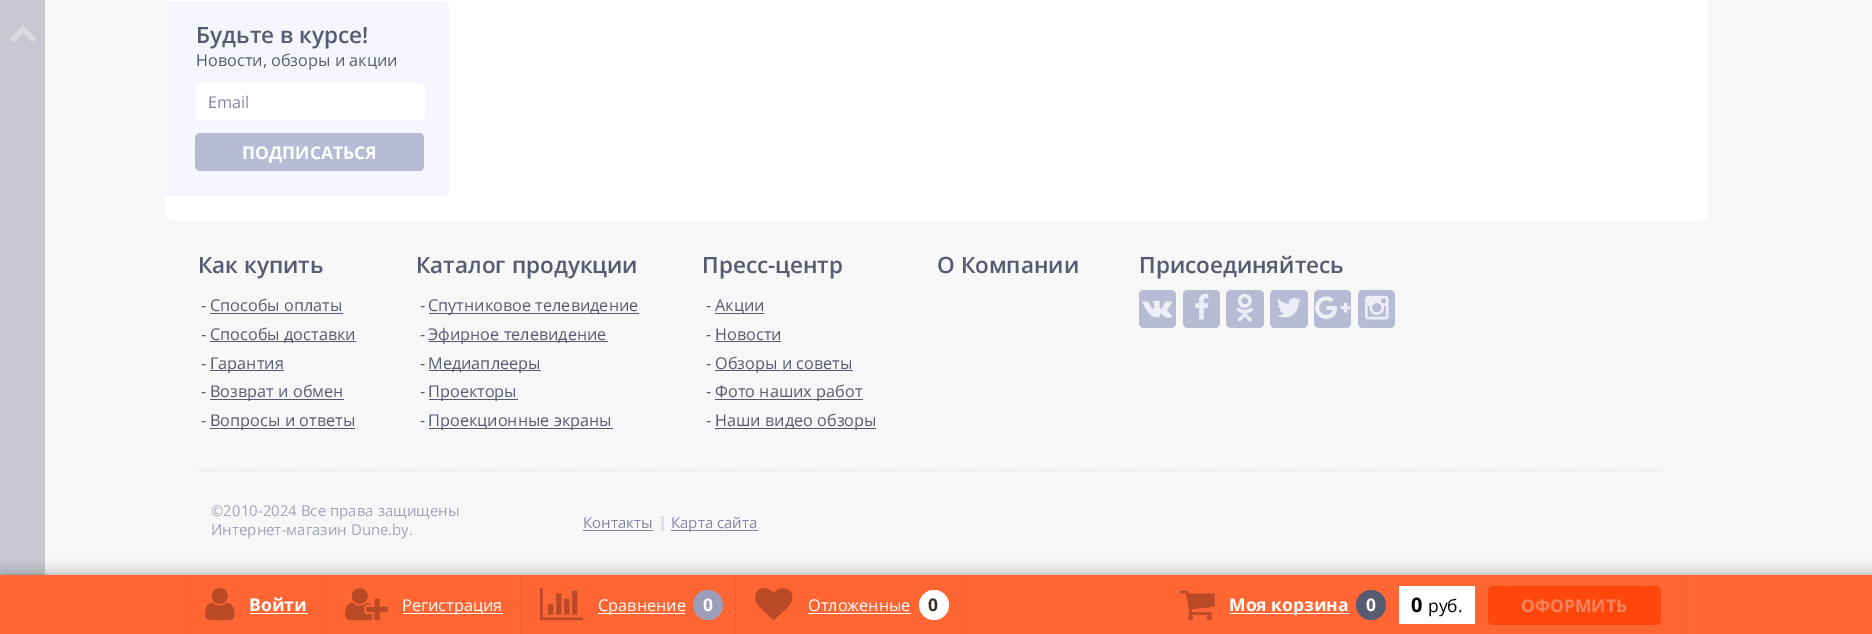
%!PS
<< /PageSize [1872 634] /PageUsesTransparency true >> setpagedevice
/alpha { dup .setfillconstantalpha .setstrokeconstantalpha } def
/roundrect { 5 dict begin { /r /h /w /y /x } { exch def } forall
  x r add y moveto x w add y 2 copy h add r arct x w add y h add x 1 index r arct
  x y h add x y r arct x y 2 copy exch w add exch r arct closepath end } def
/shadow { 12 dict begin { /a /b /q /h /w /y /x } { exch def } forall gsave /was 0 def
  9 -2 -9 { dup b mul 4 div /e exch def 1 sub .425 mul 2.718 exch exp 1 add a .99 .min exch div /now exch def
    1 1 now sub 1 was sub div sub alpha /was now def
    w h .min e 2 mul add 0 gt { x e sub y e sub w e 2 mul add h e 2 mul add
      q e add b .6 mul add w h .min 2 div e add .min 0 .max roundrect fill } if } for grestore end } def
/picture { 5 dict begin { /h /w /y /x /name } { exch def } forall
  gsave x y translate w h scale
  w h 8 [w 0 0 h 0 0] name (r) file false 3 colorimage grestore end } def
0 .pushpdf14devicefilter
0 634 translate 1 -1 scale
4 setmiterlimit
0.969 setgray
0 0 1872 634 rectfill
0.78 0.784 0.812 setrgbcolor
0 0 45 575 rectfill
(img1.rgb) 10 25 26 17 picture
1 setgray
newpath 165 -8 moveto 1708 -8 lineto 1708 213 lineto 1708 217.5 1704.5 221 1700 221 curveto 173 221 lineto 168.5 221 165 217.5 165 213 curveto closepath fill
0.957 0.961 0.992 setrgbcolor
newpath 165 1 moveto 444 1 lineto 447 1 449 3 449 6 curveto 449 191 lineto 449 194 447 196 444 196 curveto 165 196 lineto closepath fill
/OpenSans-SemiBold [22.5 0 0 -22.5 0 0] selectfont
0.341 0.357 0.443 setrgbcolor
196 43 moveto (Будьте в курсе!) show
/OpenSans-Regular [16.25 0 0 -16.25 0 0] selectfont
196 66 moveto (Новости, обзоры и акции) show
1 setgray
196 83 229 37 5 roundrect fill
0.506 0.518 0.631 setrgbcolor
208 108 moveto (Email) show
0.718 0.733 0.827 setrgbcolor
195 133 229 38 5 roundrect fill
/OpenSans-Bold [17.5 0 0 -17.5 0 0] selectfont
1 setgray
242 159 moveto (ПОДПИСАТЬСЯ) show
0.871 0.878 0.933 setrgbcolor
1.2 setlinewidth
[1.25 1.25] 0 setdash
newpath 197.5 470.5 moveto 1665 470.5 lineto stroke
/OpenSans-SemiBold [22.5 0 0 -22.5 0 0] selectfont
0.341 0.357 0.443 setrgbcolor
198 273 moveto (Как купить) show
/OpenSans-Regular [16.25 0 0 -16.25 0 0] selectfont
201 311 moveto (-) show
210 311 moveto (Способы оплаты) show
210 313 133 1 rectfill
201 340 moveto (-) show
210 341 146 1 rectfill
210 340 moveto (Способы доставки) show
201 369 moveto (-) show
210 370 74 1 rectfill
210 369 moveto (Гарантия) show
201 397 moveto (-) show
210 399 134 1 rectfill
210 397 moveto (Возврат и обмен) show
201 426 moveto (-) show
210 428 145 1 rectfill
210 426 moveto (Вопросы и ответы) show
/OpenSans-SemiBold [22.5 0 0 -22.5 0 0] selectfont
416 273 moveto (Каталог продукции) show
/OpenSans-Regular [16.25 0 0 -16.25 0 0] selectfont
420 311 moveto (-) show
429 313 210 1 rectfill
428 311 moveto (Спутниковое телевидение) show
420 340 moveto (-) show
429 341 179 1 rectfill
428 340 moveto (Эфирное телевидение) show
420 369 moveto (-) show
429 370 112 1 rectfill
428 369 moveto (Медиаплееры) show
420 397 moveto (-) show
429 399 89 1 rectfill
428 397 moveto (Проекторы) show
420 426 moveto (-) show
429 428 184 1 rectfill
428 426 moveto (Проекционные экраны) show
/OpenSans-SemiBold [22.5 0 0 -22.5 0 0] selectfont
702 273 moveto (Пресс-центр) show
/OpenSans-Regular [16.25 0 0 -16.25 0 0] selectfont
706 311 moveto (-) show
715 313 49 1 rectfill
715 311 moveto (Акции) show
706 340 moveto (-) show
715 340 moveto (Новости) show
715 341 66 1 rectfill
706 369 moveto (-) show
715 370 138 1 rectfill
715 369 moveto (Обзоры и советы) show
706 397 moveto (-) show
715 399 148 1 rectfill
715 397 moveto (Фото наших работ) show
706 426 moveto (-) show
715 428 161 1 rectfill
715 426 moveto (Наши видео обзоры) show
/OpenSans-SemiBold [22.5 0 0 -22.5 0 0] selectfont
937 273 moveto (О Компании) show
1139 273 moveto (Присоединяйтесь) show
0.718 0.733 0.827 setrgbcolor
1139 290 37 38 5 roundrect fill
(img2.rgb) 1142 300 30 18 picture
1183 290 37 38 5 roundrect fill
(img3.rgb) 1195 294 14 26 picture
1226 290 38 38 5 roundrect fill
(img4.rgb) 1236 294 17 28 picture
1270 290 38 38 5 roundrect fill
(img5.rgb) 1277 297 24 21 picture
1314 290 37 38 5 roundrect fill
(img6.rgb) 1315 296 36 23 picture
1358 290 37 38 5 roundrect fill
(img7.rgb) 1365 295 24 25 picture
/OpenSans-Regular [15 0 0 -15 0 0] selectfont
0.627 0.643 0.737 setrgbcolor
211 516 moveto (©2010-2024 Все права защищены) show
211 535 moveto (Интернет-магазин Dune.by.) show
0.506 0.518 0.631 setrgbcolor
583 528 moveto (Контакты) show
583 530 70 1 rectfill
0.871 0.878 0.933 setrgbcolor
661 516 3 15 rectfill
0.506 0.518 0.631 setrgbcolor
671 530 87 1 rectfill
671 528 moveto (Карта сайта) show
0 setgray
0 575 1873 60 0 7.5 0.36 shadow
1 0.4 0.204 setrgbcolor
0 575 1872 59 rectfill
0.949 0.38 0.192 setrgbcolor
1686 575 1 59 rectfill
185 575 1 59 rectfill
325 575 1 59 rectfill
(img8.rgb) 205 588 30 33 picture
/OpenSans-Bold [17.5 0 0 -17.5 0 0] selectfont
1 setgray
249 611 moveto (Войти) show
250 613 58 1 rectfill
0.949 0.38 0.192 setrgbcolor
520 575 1 59 rectfill
(img9.rgb) 345 588 43 33 picture
1 setgray
403 613 100 1 rectfill
/OpenSans-Regular [16.25 0 0 -16.25 0 0] selectfont
402 611 moveto (Регистрация) show
0.949 0.38 0.192 setrgbcolor
735 575 1 59 rectfill
(img10.rgb) 540 588 43 33 picture
1 setgray
598 613 87 1 rectfill
598 611 moveto (Сравнение) show
0.608 0.616 0.725 setrgbcolor
newpath 708 605 15 0 360 arc closepath fill
/OpenSans-Bold [17.5 0 0 -17.5 0 0] selectfont
1 setgray
703 611 moveto (0) show
0.949 0.38 0.192 setrgbcolor
961 575 1 59 rectfill
(img11.rgb) 755 588 38 33 picture
/OpenSans-Regular [16.25 0 0 -16.25 0 0] selectfont
1 setgray
808 611 moveto (Отложенные) show
808 613 103 1 rectfill
newpath 934 605 15 0 360 arc closepath fill
/OpenSans-Bold [17.5 0 0 -17.5 0 0] selectfont
0.212 0.196 0.141 setrgbcolor
928 611 moveto (0) show
(img12.rgb) 1180 590 35 31 picture
1 setgray
1229 613 120 1 rectfill
1229 611 moveto (Моя корзина) show
0.341 0.357 0.443 setrgbcolor
newpath 1371 605 15 0 360 arc closepath fill
1 setgray
1366 611 moveto (0) show
1399 586 76 38 rectfill
/OpenSans-Bold [20 0 0 -20 0 0] selectfont
0 setgray
1411 612 moveto (0) show
/OpenSans-Regular [17.5 0 0 -17.5 0 0] selectfont
1428 612 moveto (руб.) show
1 0.278 0.043 setrgbcolor
1488 586 173 39 5 roundrect fill
/OpenSans-Bold [17.5 0 0 -17.5 0 0] selectfont
0.949 0.518 0.376 setrgbcolor
1521 612 moveto (ОФОРМИТЬ) show
.poppdf14devicefilter showpage
